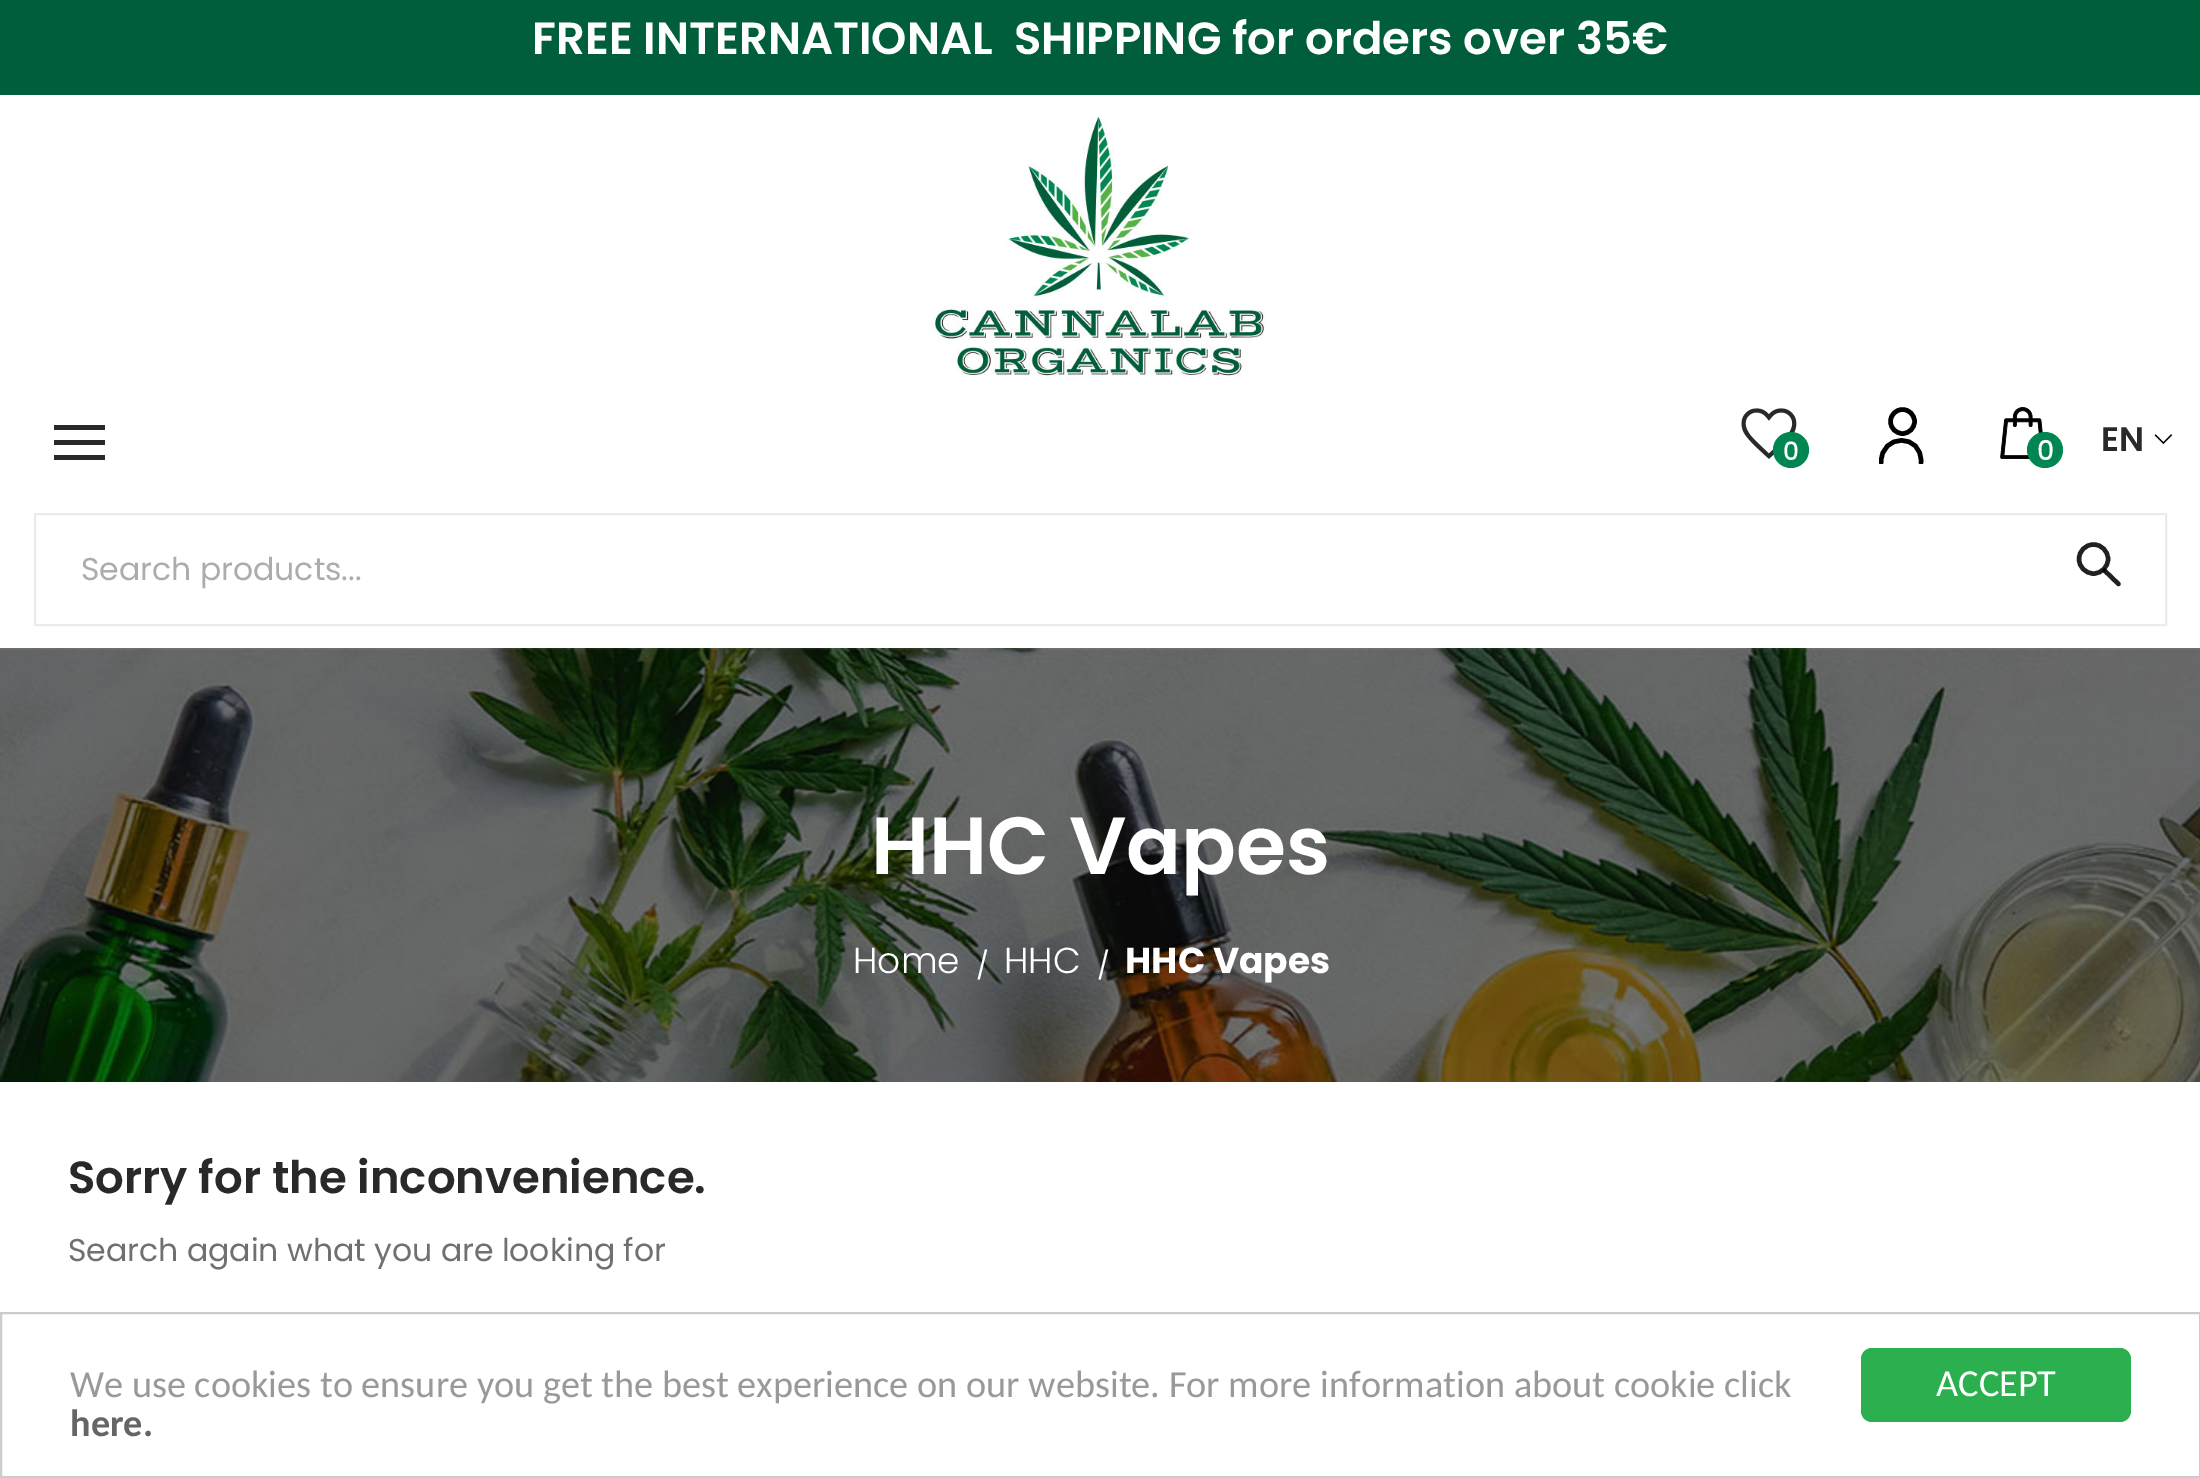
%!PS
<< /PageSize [2200 1478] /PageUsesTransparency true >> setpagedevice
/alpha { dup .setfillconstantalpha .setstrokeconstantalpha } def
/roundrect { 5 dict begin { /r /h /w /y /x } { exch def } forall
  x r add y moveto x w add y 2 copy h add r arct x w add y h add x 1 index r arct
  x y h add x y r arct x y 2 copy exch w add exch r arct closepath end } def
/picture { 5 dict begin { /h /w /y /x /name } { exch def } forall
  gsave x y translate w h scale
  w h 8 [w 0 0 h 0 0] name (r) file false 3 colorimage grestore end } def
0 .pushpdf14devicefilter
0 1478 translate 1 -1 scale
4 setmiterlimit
1 setgray
0 0 2200 1478 rectfill
0 0.369 0.227 setrgbcolor
0 0 2200 95 rectfill
/Poppins-SemiBold [45 0 0 -45 0 0] selectfont
1 setgray
532 54 moveto (FREE INTERNATIONAL  SHIPPING for orders over 35€) show
(img1.rgb) 931 117 334 260 picture
0.161 setgray
newpath 54 445 moveto 54 440 lineto 105 440 lineto 105 445 lineto closepath 54 430 moveto 54 425 lineto 105 425 lineto 105 430 lineto closepath 54 460 moveto 54 455 lineto 105 455 lineto 105 460 lineto closepath fill
(img2.rgb) 1741 408 56 51 picture
0 0.529 0.318 setrgbcolor
newpath 1791 450 18 0 360 arc closepath fill
/Poppins-Medium [25 0 0 -25 0 0] selectfont
1 setgray
1783 460 moveto (0) show
0 setgray
4.5 setlinewidth
newpath 1902.5 421.5 12 0 360 arc closepath stroke
gsave
1879 407 45 57 rectclip
1 setlinecap
newpath 1881 462.5 moveto 1881 433 1922.5 433 1921 462.5 curveto stroke
grestore
(img3.rgb) 2000 407 43 52 picture
0 0.529 0.318 setrgbcolor
newpath 2045 450 18 0 360 arc closepath fill
/Poppins-Medium [27 0 0 -27 0 0] selectfont
1 setgray
2037 460 moveto (0) show
/Poppins-SemiBold [34 0 0 -34 0 0] selectfont
0.161 setgray
2101 451 moveto (EN) show
(img4.rgb) 2154 434 19 10 picture
0.922 setgray
2 setlinewidth
35 514 2131 111 rectstroke
/Poppins-Regular [31.5 0 0 -31.5 0 0] selectfont
0.675 setgray
81 580 moveto (Search products...) show
0.129 setgray
4.4 setlinewidth
newpath 2093.5 559 14.5 0 360 arc closepath stroke
0.87 alpha
0 setgray
1 setlinecap
newpath 2104.5 570.5 moveto 2118.5 584 lineto stroke
1 alpha
(img5.rgb) 0 648 2200 434 picture
/Poppins-SemiBold [81 0 0 -81 0 0] selectfont
1 setgray
871 874 moveto (HHC Vapes) show
/Poppins-Light [36 0 0 -36 0 0] selectfont
853 973 moveto (Home) show
/Poppins-Regular [27 0 0 -27 0 0] selectfont
976 975 moveto (/) show
/Poppins-Light [36 0 0 -36 0 0] selectfont
1004 973 moveto (HHC) show
/Poppins-Regular [27 0 0 -27 0 0] selectfont
1097 975 moveto (/) show
/Poppins-Bold [36 0 0 -36 0 0] selectfont
1125 973 moveto (HHC Vapes) show
/Poppins-SemiBold [45 0 0 -45 0 0] selectfont
0.161 setgray
68 1193 moveto (Sorry for the inconvenience.) show
/Poppins-Regular [31.5 0 0 -31.5 0 0] selectfont
0.439 setgray
68 1261 moveto (Search again what you are looking for) show
0.8 setgray
2 setlinewidth
0 setlinecap
1 1313 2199 164 rectstroke
/Carlito-Regular [38.25 0 0 -38.25 0 0] selectfont
0.6 setgray
70 1397 moveto (We use cookies to ensure you get the best experience on our website. For more information about cookie click) show
/Carlito-Bold [38.25 0 0 -38.25 0 0] selectfont
0.396 setgray
70 1436 moveto (here.) show
0.173 0.686 0.306 setrgbcolor
1861 1348 270 74 11 roundrect fill
/Carlito-Regular [38.25 0 0 -38.25 0 0] selectfont
1 setgray
1936 1396 moveto (ACCEPT) show
.poppdf14devicefilter showpage
